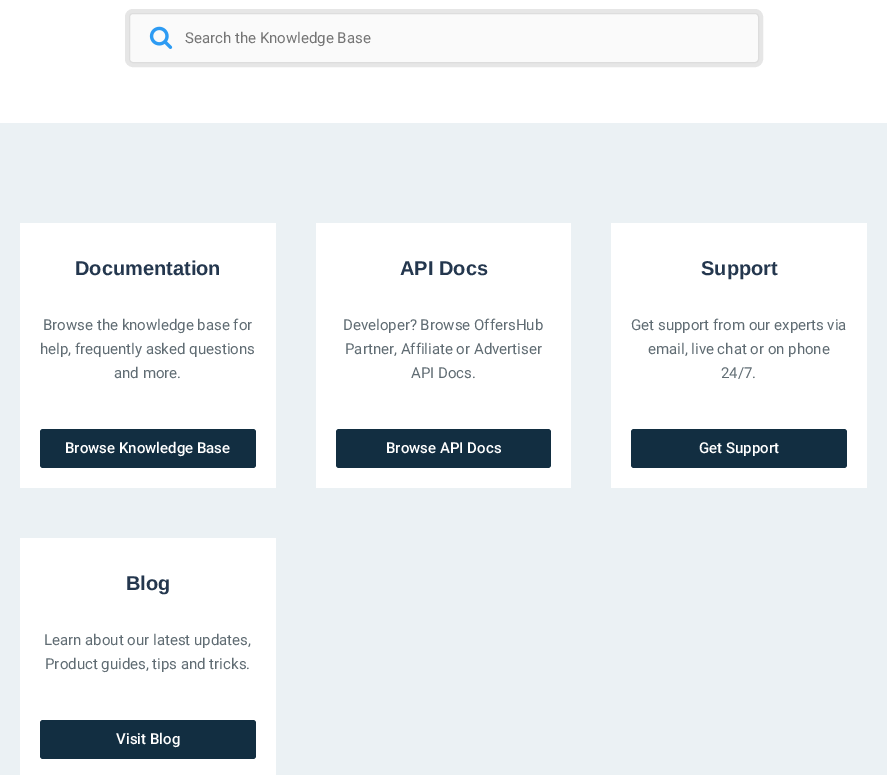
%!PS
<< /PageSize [887 775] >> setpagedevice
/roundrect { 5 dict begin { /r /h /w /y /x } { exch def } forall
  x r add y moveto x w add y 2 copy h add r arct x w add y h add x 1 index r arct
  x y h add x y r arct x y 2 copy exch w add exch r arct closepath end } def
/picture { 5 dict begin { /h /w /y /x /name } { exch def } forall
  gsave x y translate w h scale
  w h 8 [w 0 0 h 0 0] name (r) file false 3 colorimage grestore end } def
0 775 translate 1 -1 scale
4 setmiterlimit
1 setgray
0 0 887 775 rectfill
0.902 setgray
4 setlinewidth
127 11 634 54 6 roundrect stroke
0.98 setgray
129.5 13.5 629 49 3.5 roundrect gsave fill grestore
0.867 setgray
1 setlinewidth
stroke
(img1.rgb) 149 26 24 23 picture
/Roboto-Regular [15 0 0 -15 0 0] selectfont
0.459 setgray
185 43 moveto (Search the Knowledge Base) show
0.922 0.945 0.957 setrgbcolor
0 123 887 652 rectfill
1 setgray
20 223 256 265 rectfill
/LiberationSans-Bold [20 0 0 -20 0 0] selectfont
0.141 0.216 0.306 setrgbcolor
75 275 moveto (Documentation) show
/Roboto-Regular [15 0 0 -15 0 0] selectfont
0.376 0.424 0.451 setrgbcolor
43 330 moveto (Browse the knowledge base for) show
40 354 moveto (help, frequently asked questions) show
114 378 moveto (and more.) show
0.071 0.18 0.255 setrgbcolor
40 429 216 39 3 roundrect fill
/Roboto-Medium [15 0 0 -15 0 0] selectfont
1 setgray
65 453 moveto (Browse Knowledge Base) show
316 223 255 265 rectfill
/LiberationSans-Bold [20 0 0 -20 0 0] selectfont
0.141 0.216 0.306 setrgbcolor
400 275 moveto (API Docs) show
/Roboto-Regular [15 0 0 -15 0 0] selectfont
0.376 0.424 0.451 setrgbcolor
343 330 moveto (Developer? Browse OffersHub) show
345 354 moveto (Partner, Affiliate or Advertiser) show
411 378 moveto (API Docs.) show
0.071 0.18 0.255 setrgbcolor
336 429 215 39 3 roundrect fill
/Roboto-Medium [15 0 0 -15 0 0] selectfont
1 setgray
386 453 moveto (Browse API Docs) show
611 223 256 265 rectfill
/LiberationSans-Bold [20 0 0 -20 0 0] selectfont
0.141 0.216 0.306 setrgbcolor
701 275 moveto (Support) show
/Roboto-Regular [15 0 0 -15 0 0] selectfont
0.376 0.424 0.451 setrgbcolor
631 330 moveto (Get support from our experts via) show
648 354 moveto (email, live chat or on phone) show
721 378 moveto (24/7.) show
0.071 0.18 0.255 setrgbcolor
631 429 216 39 3 roundrect fill
/Roboto-Medium [15 0 0 -15 0 0] selectfont
1 setgray
699 453 moveto (Get Support) show
20 538 256 237 rectfill
/LiberationSans-Bold [20 0 0 -20 0 0] selectfont
0.141 0.216 0.306 setrgbcolor
126 590 moveto (Blog) show
/Roboto-Regular [15 0 0 -15 0 0] selectfont
0.376 0.424 0.451 setrgbcolor
44 645 moveto (Learn about our latest updates,) show
45 669 moveto (Product guides, tips and tricks.) show
0.071 0.18 0.255 setrgbcolor
40 720 216 39 3 roundrect fill
/Roboto-Medium [15 0 0 -15 0 0] selectfont
1 setgray
116 744 moveto (Visit Blog) show
showpage
